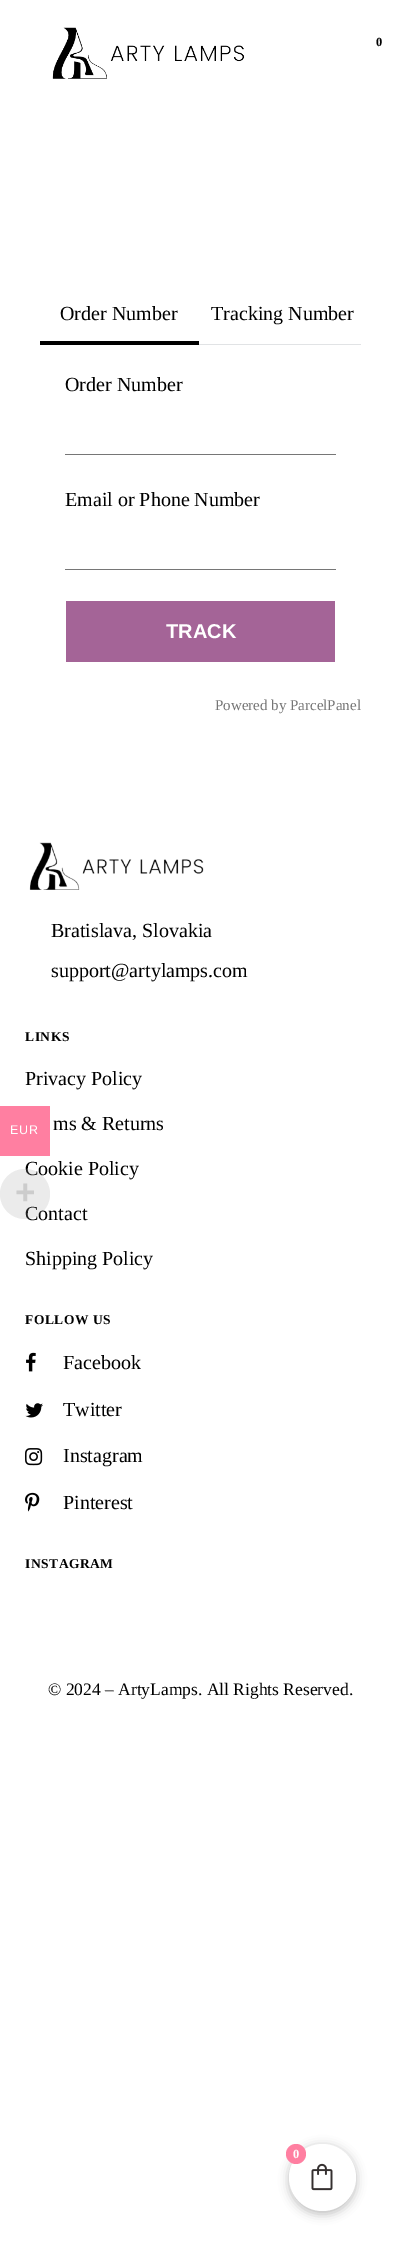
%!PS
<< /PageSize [401 2256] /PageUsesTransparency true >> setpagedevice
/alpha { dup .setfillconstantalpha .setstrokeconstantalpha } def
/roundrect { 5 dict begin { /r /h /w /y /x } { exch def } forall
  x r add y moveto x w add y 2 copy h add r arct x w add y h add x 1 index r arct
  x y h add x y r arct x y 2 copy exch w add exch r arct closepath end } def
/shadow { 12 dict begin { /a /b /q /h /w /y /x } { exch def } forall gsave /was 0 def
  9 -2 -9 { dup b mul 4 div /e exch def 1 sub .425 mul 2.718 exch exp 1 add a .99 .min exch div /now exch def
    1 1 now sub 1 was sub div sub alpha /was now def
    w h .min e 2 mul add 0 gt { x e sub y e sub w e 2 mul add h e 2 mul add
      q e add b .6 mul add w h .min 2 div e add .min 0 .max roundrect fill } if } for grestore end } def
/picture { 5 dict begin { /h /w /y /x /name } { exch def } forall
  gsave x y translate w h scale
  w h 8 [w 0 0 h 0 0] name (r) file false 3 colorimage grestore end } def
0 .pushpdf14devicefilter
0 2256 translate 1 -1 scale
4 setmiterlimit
1 setgray
0 0 401 2256 rectfill
1 0.498 0.631 setrgbcolor
0 1106 50 50 rectfill
/LiberationSans-Regular [12.5 0 0 -12.5 0 0] selectfont
1 setgray
10 1134 moveto 1 0 (EUR) ashow
/LiberationSerif-Regular [20 0 0 -20 0 0] selectfont
0 setgray
25 1175 moveto (Cookie Policy) show
25 1220 moveto (Contact) show
0.2 alpha
0.6 setgray
newpath 25 1194 25 0 360 arc closepath fill
/LiberationSans-Bold [35 0 0 -35 0 0] selectfont
1 alpha
0.8 setgray
15 1204 moveto (+) show
(img1.rgb) 52 27 193 52 picture
/LiberationSerif-Bold [12.5 0 0 -12.5 0 0] selectfont
0 setgray
376 46 moveto (0) show
0.882 0.89 0.898 setrgbcolor
199 344 162 1 rectfill
0 setgray
40 341 159 4 rectfill
/LiberationSerif-Regular [20 0 0 -20 0 0] selectfont
60 320 moveto (Order Number) show
211 320 moveto (Tracking Number) show
65 391 moveto (Order Number) show
0.463 setgray
65 454 271 1 rectfill
0 setgray
65 506 moveto (Email or Phone Number) show
0.463 setgray
65 569 271 1 rectfill
0.643 0.392 0.592 setrgbcolor
66 601 269 61 rectfill
/LiberationSans-Bold [20 0 0 -20 0 0] selectfont
1 setgray
166 638 moveto (TRACK) show
/LiberationSerif-Regular [15 0 0 -15 0 0] selectfont
0.459 setgray
215 710 moveto (Powered by ParcelPanel) show
(img2.rgb) 29 842 175 48 picture
/LiberationSerif-Regular [20 0 0 -20 0 0] selectfont
0 setgray
51 937 moveto (Bratislava, Slovakia) show
51 977 moveto (support@artylamps.com) show
/LiberationSerif-Bold [13.5 0 0 -13.5 0 0] selectfont
25 1041 moveto 0.5 0 (LINKS) ashow
/LiberationSerif-Regular [20 0 0 -20 0 0] selectfont
25 1085 moveto (Privacy Policy) show
53 1130 moveto (ms & Returns) show
25 1265 moveto (Shipping Policy) show
/LiberationSerif-Bold [13.5 0 0 -13.5 0 0] selectfont
25 1324 moveto 0.5 0 (FOLLOW US) ashow
(img3.rgb) 26 1352 10 20 picture
/LiberationSerif-Regular [20 0 0 -20 0 0] selectfont
63 1369 moveto (Facebook) show
(img4.rgb) 25 1403 18 15 picture
63 1416 moveto (Twitter) show
(img5.rgb) 25 1448 18 18 picture
63 1462 moveto (Instagram) show
(img6.rgb) 25 1492 15 20 picture
63 1509 moveto (Pinterest) show
/LiberationSerif-Bold [13.5 0 0 -13.5 0 0] selectfont
25 1568 moveto 0.5 0 (INSTAGRAM) ashow
/LiberationSerif-Regular [17.5 0 0 -17.5 0 0] selectfont
48 1695 moveto (© 2024 – ArtyLamps. All Rights Reserved.) show
289 2146 67 68 33.5 5 0.25 shadow
1 setgray
newpath 322.5 2177.5 33.5 0 360 arc closepath fill
(img7.rgb) 311 2163 22 28 picture
1 0.498 0.631 setrgbcolor
newpath 296 2154 10 0 360 arc closepath fill
/LiberationSerif-Bold [12.5 0 0 -12.5 0 0] selectfont
1 setgray
293 2158 moveto (0) show
.poppdf14devicefilter showpage
